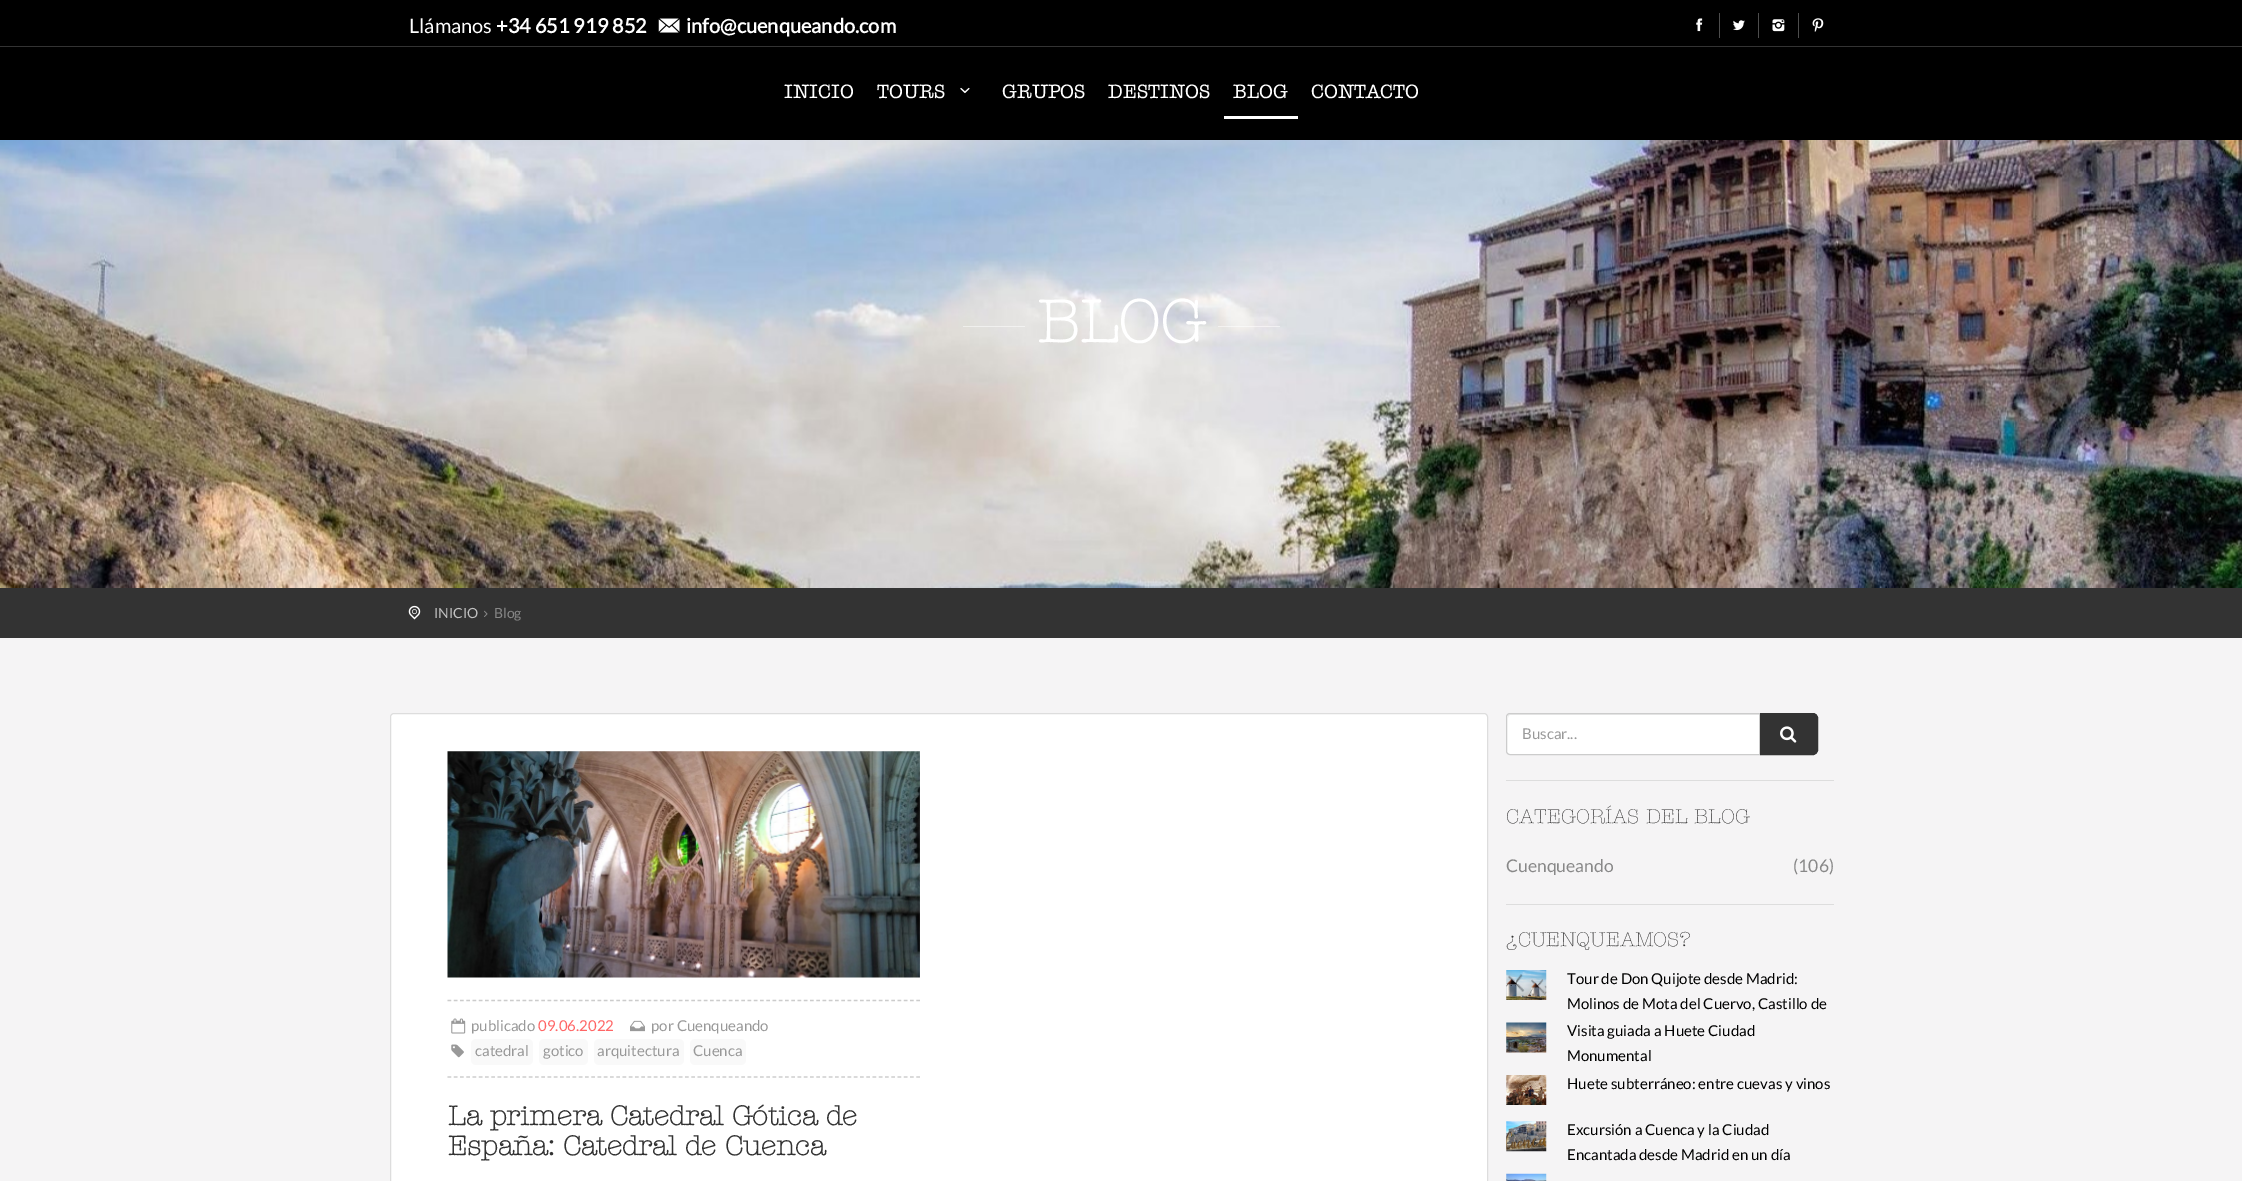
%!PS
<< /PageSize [2242 1181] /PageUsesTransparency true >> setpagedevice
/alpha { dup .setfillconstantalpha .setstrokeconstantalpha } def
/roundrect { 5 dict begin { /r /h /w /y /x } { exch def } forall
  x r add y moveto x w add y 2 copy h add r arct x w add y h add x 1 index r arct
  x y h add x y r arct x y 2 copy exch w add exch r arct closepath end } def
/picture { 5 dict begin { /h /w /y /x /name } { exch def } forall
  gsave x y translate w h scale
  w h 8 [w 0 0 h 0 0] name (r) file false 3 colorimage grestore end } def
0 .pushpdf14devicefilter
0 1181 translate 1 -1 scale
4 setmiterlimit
1 setgray
0 0 2242 1181 rectfill
0 setgray
0 0 2242 140 rectfill
0.2 setgray
0 46 2242 1 rectfill
/Lato-Regular [20 0 0 -20 0 0] selectfont
1 setgray
409 33 moveto (Llámanos) show
/Lato-Bold [20 0 0 -20 0 0] selectfont
496 33 moveto (+34 651 919 852) show
(img1.rgb) 658 18 22 15 picture
686 33 moveto (info@cuenqueando.com) show
(img2.rgb) 1696 18 7 14 picture
0.302 setgray
1719 13 1 25 rectfill
(img3.rgb) 1733 20 12 11 picture
1758 13 1 25 rectfill
(img4.rgb) 1772 19 13 13 picture
1798 13 1 25 rectfill
(img5.rgb) 1812 18 12 14 picture
/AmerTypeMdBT-Medium [20 0 0 -20 0 0] selectfont
1 setgray
784 98 moveto (INICIO) show
877 98 moveto (TOURS) show
(img6.rgb) 960 87 10 7 picture
1002 98 moveto (GRUPOS) show
1108 98 moveto (DESTINOS) show
1224 116 74 3 rectfill
1233 98 moveto (BLOG) show
1311 98 moveto (CONTACTO) show
(img7.rgb) 0 140 2242 448 picture
0.5 alpha
963 326 62 1 rectfill
/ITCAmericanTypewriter-Bold [60 0 0 -60 0 0] selectfont
1 alpha
1037 342 moveto (BLOG) show
0.5 alpha
1218 326 62 1 rectfill
1 alpha
0.961 0.957 0.961 setrgbcolor
0 638 2242 543 rectfill
0.2 setgray
0 588 2242 50 rectfill
(img8.rgb) 408 605 13 15 picture
/Lato-Regular [14 0 0 -14 0 0] selectfont
0.761 setgray
434 618 moveto (INICIO) show
(img9.rgb) 484 610 4 7 picture
0.533 setgray
494 618 moveto (Blog) show
1 setgray
390.5 713.5 1097 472 3.5 roundrect gsave fill grestore
0.867 setgray
stroke
(img10.rgb) 447 751 473 227 picture
0.8 setgray
1.2 setlinewidth
[3.75 2.5] 0 setdash
newpath 447.5 1000.5 moveto 920 1000.5 lineto stroke
newpath 447.5 1077 moveto 920 1077 lineto stroke
(img11.rgb) 451 1018 15 16 picture
/Lato-Regular [15 0 0 -15 0 0] selectfont
0.6 setgray
471 1031 moveto (publicado) show
1 0.4 0.4 setrgbcolor
538 1031 moveto (09.06.2022) show
(img12.rgb) 630 1020 15 12 picture
0.6 setgray
651 1031 moveto (por Cuenqueando) show
(img13.rgb) 451 1044 13 14 picture
0.976 setgray
471 1039 62 26 5 roundrect fill
0.6 setgray
475 1056 moveto (catedral) show
0.976 setgray
539 1039 49 26 5 roundrect fill
0.6 setgray
543 1056 moveto (gotico) show
0.976 setgray
594 1039 90 26 5 roundrect fill
0.6 setgray
597 1056 moveto (arquitectura) show
0.976 setgray
690 1039 56 26 5 roundrect fill
0.6 setgray
693 1056 moveto (Cuenca) show
/ITCAmericanTypewriter-Bold [27.5 0 0 -27.5 0 0] selectfont
0.2 setgray
448 1125 moveto (La primera Catedral Gótica de) show
448 1155 moveto (España: Catedral de Cuenca) show
1 setgray
newpath 1510 713 moveto 1760 713 lineto 1760 755 lineto 1510 755 lineto 1508 755 1506 753 1506 751 curveto 1506 717 lineto 1506 715 1508 713 1510 713 curveto closepath fill
0.925 setgray
newpath 1510 715 moveto 1759 715 lineto 1759 714 lineto 1510 714 lineto 1509 714 1508 715 1508 716 curveto 1508 718 lineto 1508 716 1509 715 1510 715 curveto closepath fill
0.8 setgray
1 setlinewidth
[] 0 setdash
newpath 1510 713.5 moveto 1759.5 713.5 lineto 1759.5 754.5 lineto 1510 754.5 lineto 1508 754.5 1506.5 753 1506.5 751 curveto 1506.5 717 lineto 1506.5 715 1508 713.5 1510 713.5 curveto closepath stroke
/Lato-Regular [15 0 0 -15 0 0] selectfont
0.6 setgray
1522 739 moveto (Buscar...) show
0.2 setgray
newpath 1760.5 713.5 moveto 1813 713.5 lineto 1815.5 713.5 1817.5 715.5 1817.5 718 curveto 1817.5 750 lineto 1817.5 752.5 1815.5 754.5 1813 754.5 curveto 1760.5 754.5 lineto closepath gsave fill grestore
stroke
(img14.rgb) 1780 726 17 17 picture
0.867 setgray
1506 780 328 1 rectfill
/ITCAmericanTypewriter-Light [20 0 0 -20 0 0] selectfont
0.2 setgray
1506 823 moveto (CATEGORÍAS DEL BLOG) show
/Lato-Regular [17.5 0 0 -17.5 0 0] selectfont
0.533 setgray
1506 872 moveto (Cuenqueando) show
1793 872 moveto (\(106\)) show
0.867 setgray
1506 904 328 1 rectfill
/ITCAmericanTypewriter-Light [20 0 0 -20 0 0] selectfont
0.2 setgray
1506 946 moveto (¿CUENQUEAMOS?) show
(img15.rgb) 1506 970 41 30 picture
/Lato-Regular [15 0 0 -15 0 0] selectfont
0 setgray
1567 984 moveto (Tour de Don Quijote desde Madrid:) show
1567 1009 moveto (Molinos de Mota del Cuervo, Castillo de) show
(img16.rgb) 1506 1022 41 31 picture
1567 1036 moveto (Visita guiada a Huete Ciudad) show
1567 1061 moveto (Monumental) show
(img17.rgb) 1506 1075 41 30 picture
1567 1089 moveto (Huete subterráneo: entre cuevas y vinos) show
(img18.rgb) 1506 1121 41 31 picture
1567 1135 moveto (Excursión a Cuenca y la Ciudad) show
1567 1160 moveto (Encantada desde Madrid en un día) show
(img19.rgb) 1506 1173 41 8 picture
.poppdf14devicefilter showpage
